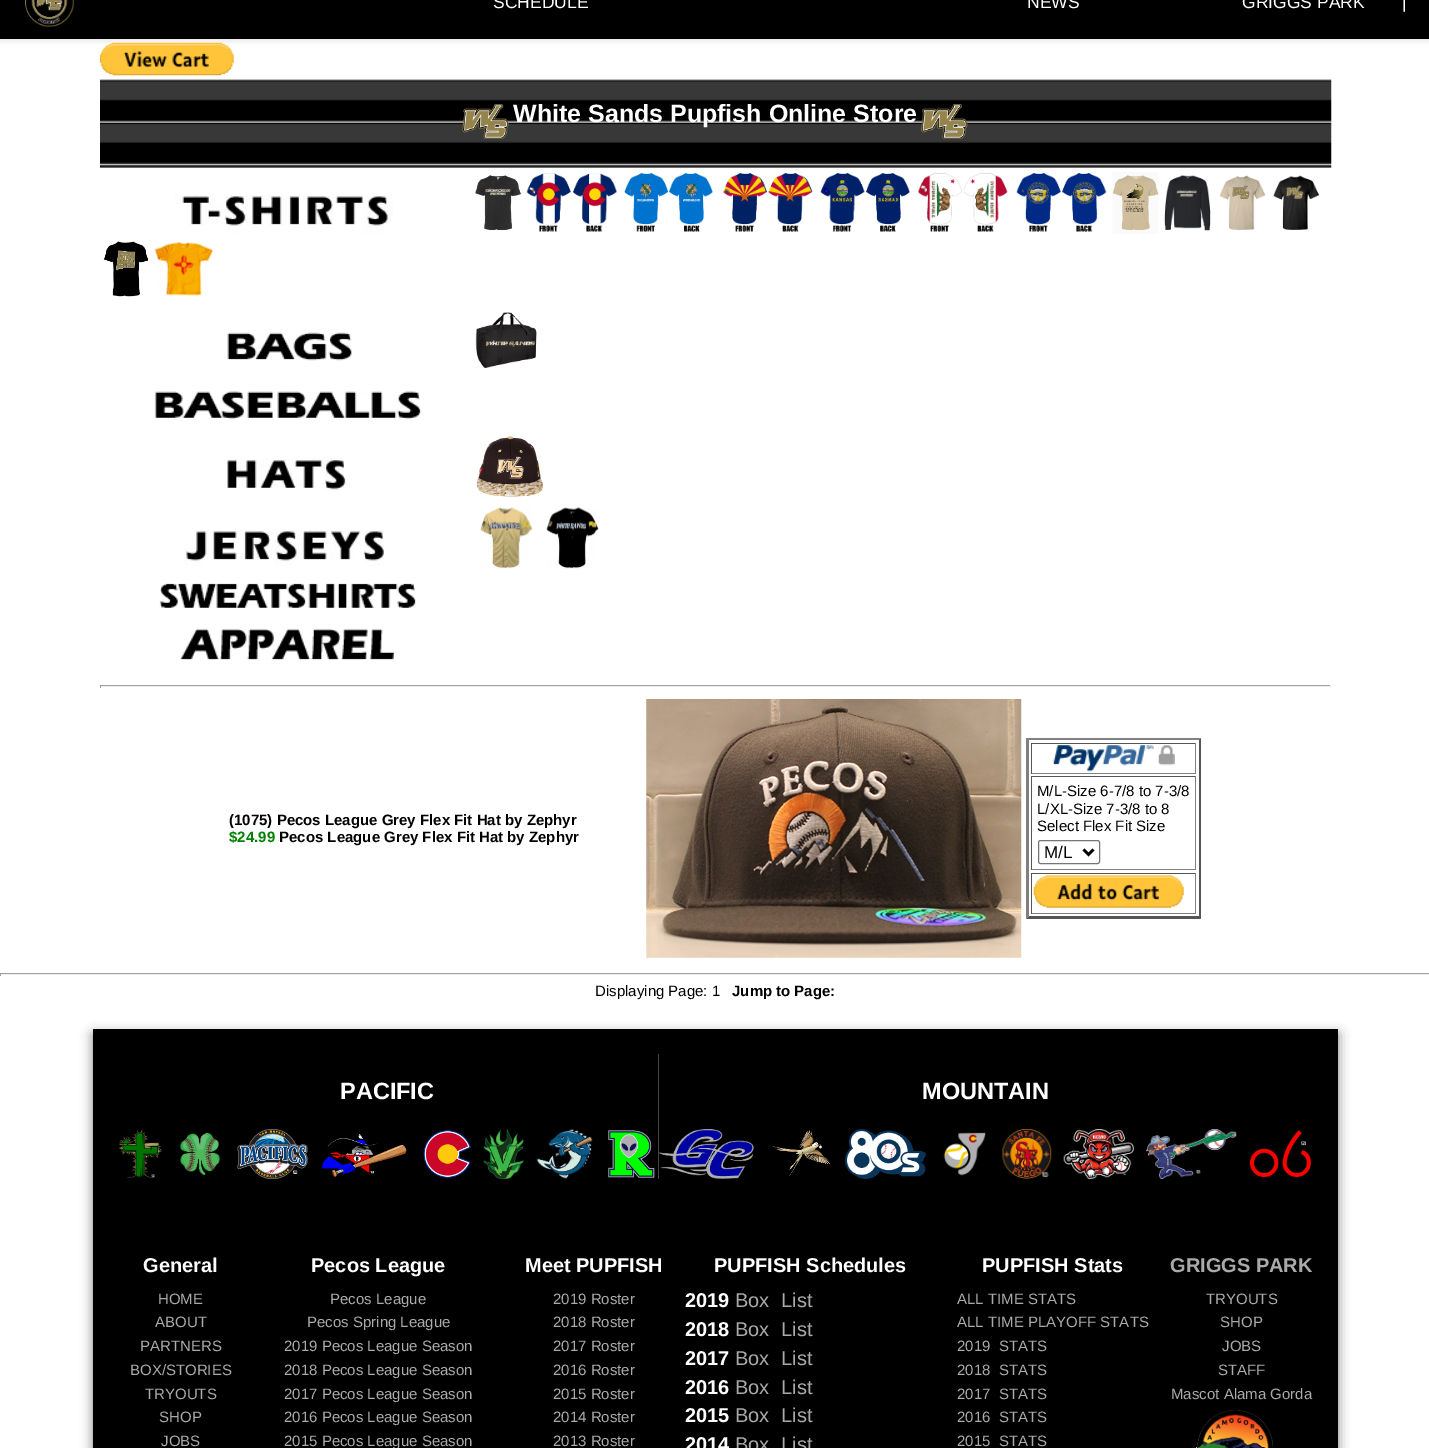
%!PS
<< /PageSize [1429 1448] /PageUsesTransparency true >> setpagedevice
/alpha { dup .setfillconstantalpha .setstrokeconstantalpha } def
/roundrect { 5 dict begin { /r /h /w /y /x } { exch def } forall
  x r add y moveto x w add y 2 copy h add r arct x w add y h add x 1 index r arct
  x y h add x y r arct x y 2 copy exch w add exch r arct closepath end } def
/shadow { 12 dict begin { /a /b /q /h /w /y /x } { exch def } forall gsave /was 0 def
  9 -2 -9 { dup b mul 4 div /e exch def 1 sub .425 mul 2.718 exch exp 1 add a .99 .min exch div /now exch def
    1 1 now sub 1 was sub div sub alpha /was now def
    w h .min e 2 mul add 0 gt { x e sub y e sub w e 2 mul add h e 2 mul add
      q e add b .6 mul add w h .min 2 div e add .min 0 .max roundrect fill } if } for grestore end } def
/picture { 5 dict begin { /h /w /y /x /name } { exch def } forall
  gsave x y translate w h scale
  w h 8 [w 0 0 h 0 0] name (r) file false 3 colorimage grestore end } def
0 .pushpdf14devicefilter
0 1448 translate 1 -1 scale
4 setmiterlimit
1 setgray
0 0 1429 1448 rectfill
(img2.rgb) 100 42 134 34 picture
0 setgray
0 -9 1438 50 0 3 0.1 shadow
0 0 1429 39 rectfill
(img1.rgb) 25 0 49 27 picture
/LiberationSans-Regular [17.5 0 0 -17.5 0 0] selectfont
1 setgray
493 8 moveto (SCHEDULE) show
1027 8 moveto (NEWS) show
1242 8 moveto (GRIGGS PARK) show
1402 8 moveto (|) show
(img3.rgb) 100 79 1232 89 picture
(img4.rgb) 462 104 47 35 picture
/LiberationSans-Bold [25 0 0 -25 0 0] selectfont
513 122 moveto (White Sands Pupfish Online Store) show
(img5.rgb) 921 104 47 35 picture
(img6.rgb) 175 194 218 40 picture
(img7.rgb) 475 175 47 56 picture
(img8.rgb) 526 173 92 59 picture
(img9.rgb) 624 172 89 60 picture
(img10.rgb) 723 172 90 60 picture
(img11.rgb) 820 172 90 60 picture
(img12.rgb) 918 172 90 60 picture
(img13.rgb) 1016 172 91 60 picture
(img14.rgb) 1112 172 47 62 picture
(img15.rgb) 1164 175 47 56 picture
(img16.rgb) 1219 175 47 55 picture
(img17.rgb) 1273 175 47 55 picture
(img18.rgb) 103 241 46 56 picture
(img19.rgb) 154 241 60 55 picture
(img20.rgb) 227 332 125 29 picture
(img21.rgb) 475 312 62 56 picture
(img22.rgb) 154 391 267 29 picture
(img23.rgb) 224 458 126 32 picture
(img24.rgb) 476 436 67 61 picture
(img25.rgb) 184 529 200 37 picture
(img26.rgb) 480 507 53 62 picture
(img27.rgb) 546 507 53 62 picture
(img28.rgb) 159 583 257 25 picture
(img29.rgb) 180 628 214 32 picture
0.624 setgray
100 685 1231 1 rectfill
0.933 setgray
1330 685 1 3 rectfill
100 686 1231 1 rectfill
0.624 setgray
100 685 1 3 rectfill
/LiberationSans-Bold [15 0 0 -15 0 0] selectfont
0 setgray
229 825 moveto (\(1075\) Pecos League Grey Flex Fit Hat by Zephyr) show
0 0.502 0 setrgbcolor
229 842 moveto ($24.99) show
0 setgray
279 842 moveto (Pecos League Grey Flex Fit Hat by Zephyr) show
(img30.rgb) 646 699 376 259 picture
0.502 setgray
newpath 1026 738 moveto 1201 738 lineto 1199 740 lineto 1029 740 lineto closepath fill
0.333 setgray
newpath 1201 738 moveto 1201 919 lineto 1199 916 lineto 1199 740 lineto closepath fill
newpath 1201 919 moveto 1026 919 lineto 1029 916 lineto 1199 916 lineto closepath fill
0.502 setgray
newpath 1026 919 moveto 1026 738 lineto 1029 740 lineto 1029 916 lineto closepath fill
0.333 setgray
1031 743 165 1 rectfill
0.502 setgray
1195 743 1 31 rectfill
1031 773 165 1 rectfill
0.333 setgray
1031 743 1 31 rectfill
(img31.rgb) 1053 745 122 27 picture
1031 776 165 1 rectfill
0.502 setgray
1195 776 1 94 rectfill
1031 869 165 1 rectfill
0.333 setgray
1031 776 1 94 rectfill
/LiberationSans-Regular [15 0 0 -15 0 0] selectfont
0 setgray
1037 796 moveto (M/L-Size 6-7/8 to 7-3/8) show
1037 814 moveto (L/XL-Size 7-3/8 to 8) show
1037 831 moveto (Select Flex Fit Size) show
0.463 setgray
1038.5 840.5 61 23 2 roundrect stroke
0 setgray
2.5 setlinewidth
newpath 1083.5 849.5 moveto 1088.5 854.5 lineto 1093.5 849.5 lineto stroke
/LiberationSans-Regular [17 0 0 -17 0 0] selectfont
1044 858 moveto (M/L) show
0.333 setgray
1031 873 165 1 rectfill
0.502 setgray
1195 873 1 41 rectfill
1031 913 165 1 rectfill
0.333 setgray
1031 873 1 41 rectfill
(img32.rgb) 1033 875 151 33 picture
0.624 setgray
0 973 1429 1 rectfill
0.933 setgray
0 974 1429 1 rectfill
0.624 setgray
0 973 1 3 rectfill
/LiberationSans-Regular [15 0 0 -15 0 0] selectfont
0 setgray
595 996 moveto (Displaying Page: 1) show
/LiberationSans-Bold [15 0 0 -15 0 0] selectfont
732 996 moveto (Jump to Page:) show
93 1034 1245 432 0 6 0.5 shadow
93 1029 1245 419 rectfill
/LiberationSans-Bold [23.5 0 0 -23.5 0 0] selectfont
1 setgray
340 1099 moveto (PACIFIC) show
(img33.rgb) 118 1129 44 50 picture
(img34.rgb) 180 1133 40 42 picture
(img35.rgb) 237 1129 71 50 picture
(img36.rgb) 322 1134 85 43 picture
(img37.rgb) 423 1130 48 48 picture
(img38.rgb) 483 1129 41 50 picture
(img39.rgb) 536 1129 57 50 picture
(img40.rgb) 608 1130 47 48 picture
0.267 setgray
658 1054 1 125 rectfill
1 setgray
922 1099 moveto (MOUNTAIN) show
(img41.rgb) 658 1129 96 50 picture
(img42.rgb) 772 1129 59 47 picture
(img43.rgb) 845 1129 82 50 picture
(img44.rgb) 942 1131 44 45 picture
(img45.rgb) 1002 1129 50 50 picture
(img46.rgb) 1063 1129 71 50 picture
(img47.rgb) 1146 1129 91 50 picture
(img48.rgb) 1249 1130 63 48 picture
/LiberationSans-Bold [20 0 0 -20 0 0] selectfont
143 1272 moveto (General) show
/LiberationSans-Regular [15 0 0 -15 0 0] selectfont
0.667 setgray
158 1304 moveto (HOME) show
155 1327 moveto (ABOUT) show
140 1351 moveto (PARTNERS) show
130 1375 moveto (BOX/STORIES) show
145 1399 moveto (TRYOUTS) show
159 1422 moveto (SHOP) show
161 1446 moveto (JOBS) show
/LiberationSans-Bold [20 0 0 -20 0 0] selectfont
1 setgray
311 1272 moveto (Pecos League) show
/LiberationSans-Regular [15 0 0 -15 0 0] selectfont
0.667 setgray
330 1304 moveto (Pecos League) show
307 1327 moveto (Pecos Spring League) show
284 1351 moveto (2019 Pecos League Season) show
284 1375 moveto (2018 Pecos League Season) show
284 1399 moveto (2017 Pecos League Season) show
284 1422 moveto (2016 Pecos League Season) show
284 1446 moveto (2015 Pecos League Season) show
/LiberationSans-Bold [20 0 0 -20 0 0] selectfont
1 setgray
525 1272 moveto (Meet PUPFISH) show
/LiberationSans-Regular [15 0 0 -15 0 0] selectfont
0.667 setgray
553 1304 moveto (2019 Roster) show
553 1327 moveto (2018 Roster) show
553 1351 moveto (2017 Roster) show
553 1375 moveto (2016 Roster) show
553 1399 moveto (2015 Roster) show
553 1422 moveto (2014 Roster) show
553 1446 moveto (2013 Roster) show
/LiberationSans-Bold [20 0 0 -20 0 0] selectfont
1 setgray
714 1272 moveto (PUPFISH Schedules) show
685 1307 moveto (2019) show
/LiberationSans-Regular [20 0 0 -20 0 0] selectfont
0.667 setgray
735 1307 moveto (Box) show
781 1307 moveto (List) show
/LiberationSans-Bold [20 0 0 -20 0 0] selectfont
1 setgray
685 1336 moveto (2018) show
/LiberationSans-Regular [20 0 0 -20 0 0] selectfont
0.667 setgray
735 1336 moveto (Box) show
781 1336 moveto (List) show
/LiberationSans-Bold [20 0 0 -20 0 0] selectfont
1 setgray
685 1365 moveto (2017) show
/LiberationSans-Regular [20 0 0 -20 0 0] selectfont
0.667 setgray
735 1365 moveto (Box) show
781 1365 moveto (List) show
/LiberationSans-Bold [20 0 0 -20 0 0] selectfont
1 setgray
685 1394 moveto (2016) show
/LiberationSans-Regular [20 0 0 -20 0 0] selectfont
0.667 setgray
735 1394 moveto (Box) show
781 1394 moveto (List) show
/LiberationSans-Bold [20 0 0 -20 0 0] selectfont
1 setgray
685 1422 moveto (2015) show
/LiberationSans-Regular [20 0 0 -20 0 0] selectfont
0.667 setgray
735 1422 moveto (Box) show
781 1422 moveto (List) show
/LiberationSans-Bold [20 0 0 -20 0 0] selectfont
1 setgray
685 1451 moveto (2014) show
/LiberationSans-Regular [20 0 0 -20 0 0] selectfont
0.667 setgray
735 1451 moveto (Box) show
781 1451 moveto (List) show
/LiberationSans-Bold [20 0 0 -20 0 0] selectfont
1 setgray
982 1272 moveto (PUPFISH Stats) show
/LiberationSans-Regular [15 0 0 -15 0 0] selectfont
0.667 setgray
957 1304 moveto (ALL TIME STATS) show
957 1327 moveto (ALL TIME PLAYOFF STATS) show
957 1351 moveto (2019  STATS) show
957 1375 moveto (2018  STATS) show
957 1399 moveto (2017  STATS) show
957 1422 moveto (2016  STATS) show
957 1446 moveto (2015  STATS) show
/LiberationSans-Bold [20 0 0 -20 0 0] selectfont
1170 1272 moveto (GRIGGS PARK) show
/LiberationSans-Regular [15 0 0 -15 0 0] selectfont
1206 1304 moveto (TRYOUTS) show
1220 1327 moveto (SHOP) show
1222 1351 moveto (JOBS) show
1218 1375 moveto (STAFF) show
1171 1399 moveto (Mascot Alama Gorda) show
(img49.rgb) 1196 1410 77 38 picture
.poppdf14devicefilter showpage
